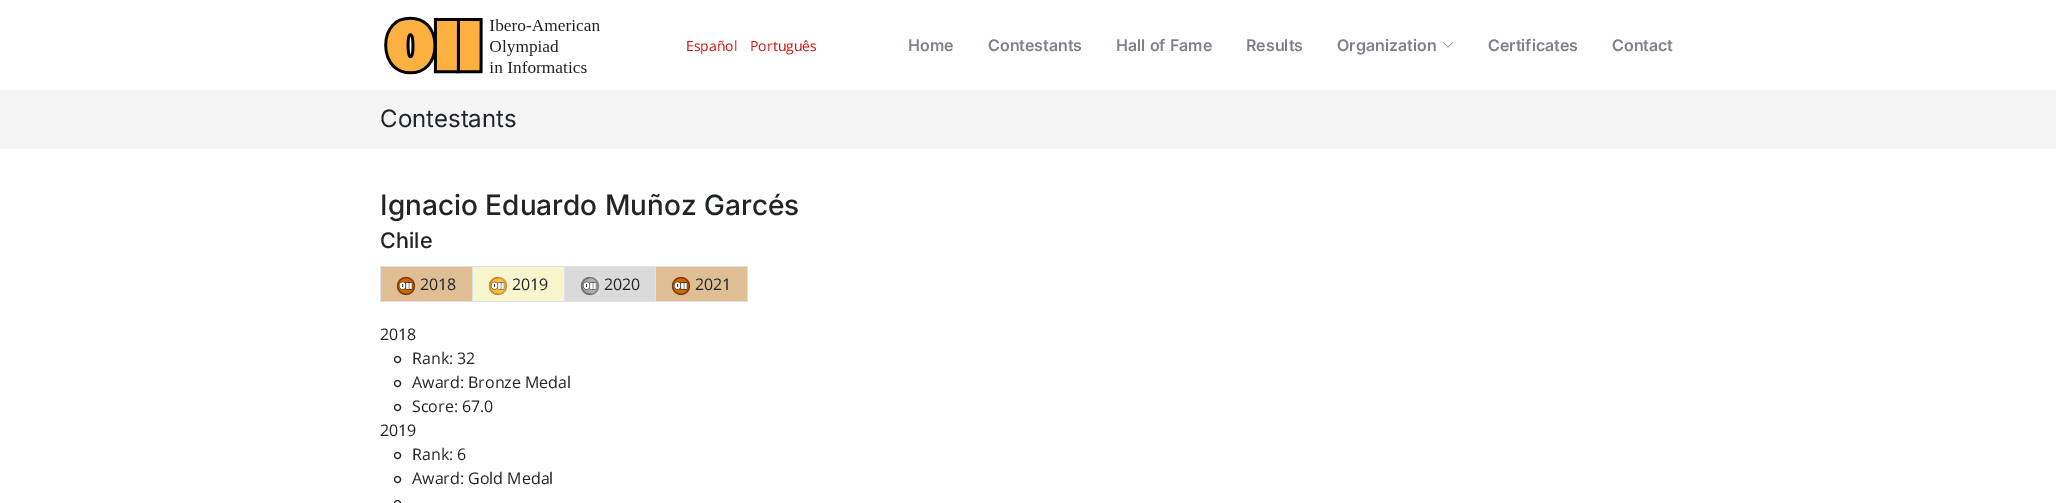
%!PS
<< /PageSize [2056 503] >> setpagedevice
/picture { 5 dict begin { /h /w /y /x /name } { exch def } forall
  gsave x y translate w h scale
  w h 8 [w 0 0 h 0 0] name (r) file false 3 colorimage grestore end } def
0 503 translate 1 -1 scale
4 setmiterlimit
1 setgray
0 0 2056 503 rectfill
(img1.rgb) 384 16 216 59 picture
/OpenSans-Regular [14 0 0 -14 0 0] selectfont
0.808 0.071 0.071 setrgbcolor
686 51 moveto (Español) show
750 51 moveto (Português) show
/Inter-SemiBold [16 0 0 -16 0 0] selectfont
0.498 0.498 0.565 setrgbcolor
908 51 moveto (Home) show
988 51 moveto (Contestants) show
1116 51 moveto (Hall of Fame) show
1246 51 moveto (Results) show
1337 51 moveto (Organization) show
(img2.rgb) 1443 42 10 6 picture
1488 51 moveto (Certificates) show
1612 51 moveto (Contact) show
0.961 0.961 0.965 setrgbcolor
0 90 2056 59 rectfill
/Inter-Regular [24 0 0 -24 0 0] selectfont
0.129 0.145 0.161 setrgbcolor
380 127 moveto (Contestants) show
/Inter-Medium [28 0 0 -28 0 0] selectfont
380 215 moveto (Ignacio Eduardo Muñoz Garcés) show
/Inter-Medium [21.5 0 0 -21.5 0 0] selectfont
380 248 moveto (Chile) show
0.878 0.745 0.58 setrgbcolor
381 267 91 34 rectfill
0.871 0.886 0.902 setrgbcolor
655 266 93 1 rectfill
747 266 1 36 rectfill
655 301 93 1 rectfill
655 266 1 36 rectfill
564 266 92 1 rectfill
564 301 92 1 rectfill
564 266 1 36 rectfill
472 266 93 1 rectfill
472 301 93 1 rectfill
472 266 1 36 rectfill
380 266 93 1 rectfill
380 301 93 1 rectfill
380 266 1 36 rectfill
(img3.rgb) 396 276 20 20 picture
/OpenSans-Regular [16 0 0 -16 0 0] selectfont
0.129 0.145 0.161 setrgbcolor
420 290 moveto (2018) show
0.976 0.965 0.804 setrgbcolor
473 267 91 34 rectfill
(img4.rgb) 488 276 20 20 picture
0.129 0.145 0.161 setrgbcolor
512 290 moveto (2019) show
0.855 setgray
565 267 90 34 rectfill
(img5.rgb) 580 276 20 20 picture
0.129 0.145 0.161 setrgbcolor
604 290 moveto (2020) show
0.878 0.745 0.58 setrgbcolor
656 267 91 34 rectfill
(img3.rgb) 671 276 20 20 picture
0.129 0.145 0.161 setrgbcolor
695 290 moveto (2021) show
380 340 moveto (2018) show
newpath 397.5 359.5 3 0 360 arc closepath stroke
412 364 moveto (Rank: 32) show
newpath 397.5 383.5 3 0 360 arc closepath stroke
412 388 moveto (Award: Bronze Medal) show
newpath 397.5 407.5 3 0 360 arc closepath stroke
412 412 moveto (Score: 67.0) show
380 436 moveto (2019) show
newpath 397.5 455.5 3 0 360 arc closepath stroke
412 460 moveto (Rank: 6) show
newpath 397.5 479.5 3 0 360 arc closepath stroke
412 484 moveto (Award: Gold Medal) show
newpath 397.5 503.5 3 0 360 arc closepath stroke
showpage
